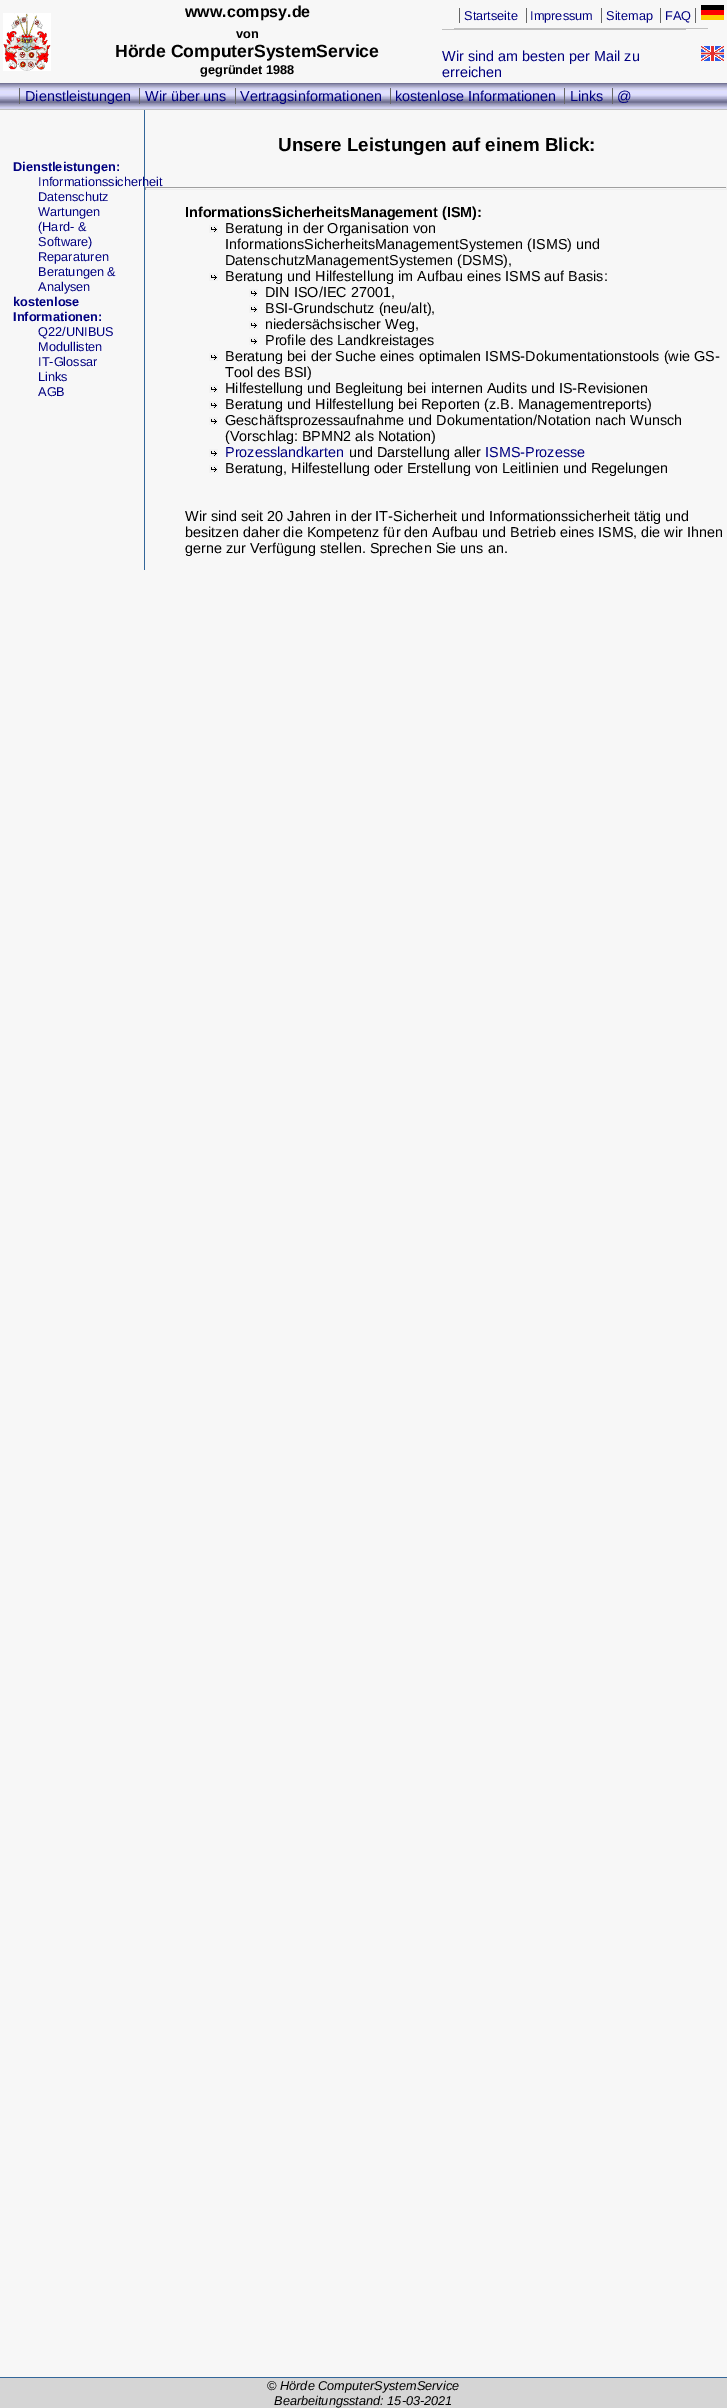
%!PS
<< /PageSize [727 2408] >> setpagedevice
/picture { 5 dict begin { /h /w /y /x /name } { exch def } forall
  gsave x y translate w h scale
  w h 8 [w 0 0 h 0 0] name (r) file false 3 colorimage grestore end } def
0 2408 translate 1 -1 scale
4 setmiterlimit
0.969 setgray
0 0 727 2408 rectfill
(img1.rgb) 3 13 48 58 picture
/LiberationSans-Bold [16 0 0 -16 0 0] selectfont
0 setgray
185 17 moveto (www.compsy.de) show
0.753 setgray
442 29 244 1 rectfill
454 28 254 1 rectfill
/LiberationSans-Regular [12.75 0 0 -12.75 0 0] selectfont
0 0 0.502 setrgbcolor
464 20 moveto (Startseite) show
0.4 setgray
459 8 1 15 rectfill
0 0 0.502 setrgbcolor
530 20 moveto (Impressum) show
0.4 setgray
526 8 1 15 rectfill
0 0 0.502 setrgbcolor
606 20 moveto (Sitemap) show
0.4 setgray
601 8 1 15 rectfill
0 0 0.502 setrgbcolor
665 20 moveto (FAQ) show
0.4 setgray
660 8 1 15 rectfill
695 8 1 15 rectfill
/LiberationSans-Regular [14.4 0 0 -14.4 0 0] selectfont
0 0 0.502 setrgbcolor
442 61 moveto (Wir sind am besten per Mail zu) show
442 77 moveto (erreichen) show
(img2.rgb) 701 5 23 15 picture
/LiberationSans-Bold [12.75 0 0 -12.75 0 0] selectfont
0 setgray
236 38 moveto (von) show
/LiberationSans-Bold [17.6 0 0 -17.6 0 0] selectfont
115 57 moveto (Hörde ComputerSystemService) show
/LiberationSans-Bold [12.75 0 0 -12.75 0 0] selectfont
200 74 moveto (gegründet 1988) show
(img3.rgb) 701 46 23 15 picture
(img4.rgb) 0 83 727 26 picture
0.753 setgray
0 109 727 1 rectfill
/LiberationSans-Regular [14.4 0 0 -14.4 0 0] selectfont
0 0 0.502 setrgbcolor
25 101 moveto (Dienstleistungen) show
0.4 setgray
19 88 1 16 rectfill
0 0 0.502 setrgbcolor
145 101 moveto (Wir über uns) show
0.4 setgray
139 88 1 16 rectfill
0 0 0.502 setrgbcolor
240 101 moveto (Vertragsinformationen) show
0.4 setgray
235 88 1 16 rectfill
0 0 0.502 setrgbcolor
395 101 moveto (kostenlose Informationen) show
0.4 setgray
390 88 1 16 rectfill
0 0 0.502 setrgbcolor
570 101 moveto (Links) show
0.4 setgray
564 88 1 16 rectfill
0 0 0.502 setrgbcolor
617 101 moveto (@) show
0.4 setgray
612 88 1 16 rectfill
/LiberationSans-Bold [12.75 0 0 -12.75 0 0] selectfont
0 0 0.502 setrgbcolor
13 171 moveto (Dienstleistungen:) show
0.2 0.4 0.6 setrgbcolor
144 110 1 460 rectfill
/LiberationSans-Regular [12.75 0 0 -12.75 0 0] selectfont
0 0 0.502 setrgbcolor
38 186 moveto (Informationssicherheit) show
38 201 moveto (Datenschutz) show
38 216 moveto (Wartungen) show
38 231 moveto (\(Hard- &) show
38 246 moveto (Software\)) show
38 261 moveto (Reparaturen) show
38 276 moveto (Beratungen &) show
38 291 moveto (Analysen) show
/LiberationSans-Bold [12.75 0 0 -12.75 0 0] selectfont
13 306 moveto (kostenlose) show
13 321 moveto (Informationen:) show
/LiberationSans-Regular [12.75 0 0 -12.75 0 0] selectfont
38 336 moveto (Q22/UNIBUS) show
38 351 moveto (Modullisten) show
38 366 moveto (IT-Glossar) show
38 381 moveto (Links) show
38 396 moveto (AGB) show
/LiberationSans-Bold [18.75 0 0 -18.75 0 0] selectfont
0 setgray
278 151 moveto (Unsere Leistungen auf einem Blick:) show
0.624 setgray
145 187 582 1 rectfill
0.933 setgray
726 187 1 3 rectfill
145 189 582 1 rectfill
0.624 setgray
145 187 1 3 rectfill
/LiberationSans-Bold [14.4 0 0 -14.4 0 0] selectfont
0 setgray
185 217 moveto (InformationsSicherheitsManagement \(ISM\):) show
(img5.rgb) 209 225 9 8 picture
/LiberationSans-Regular [14.4 0 0 -14.4 0 0] selectfont
225 233 moveto (Beratung in der Organisation von) show
225 249 moveto (InformationsSicherheitsManagementSystemen \(ISMS\) und) show
225 265 moveto (DatenschutzManagementSystemen \(DSMS\),) show
(img5.rgb) 209 273 9 8 picture
225 281 moveto (Beratung und Hilfestellung im Aufbau eines ISMS auf Basis:) show
(img5.rgb) 249 289 9 8 picture
265 297 moveto (DIN ISO/IEC 27001,) show
(img5.rgb) 249 305 9 8 picture
265 313 moveto (BSI-Grundschutz \(neu/alt\),) show
(img5.rgb) 249 321 9 8 picture
265 329 moveto (niedersächsischer Weg,) show
(img5.rgb) 249 337 9 8 picture
265 345 moveto (Profile des Landkreistages) show
(img5.rgb) 209 353 9 8 picture
225 361 moveto (Beratung bei der Suche eines optimalen ISMS-Dokumentationstools \(wie GS-) show
225 377 moveto (Tool des BSI\)) show
(img5.rgb) 209 385 9 8 picture
225 393 moveto (Hilfestellung und Begleitung bei internen Audits und IS-Revisionen) show
(img5.rgb) 209 401 9 8 picture
225 409 moveto (Beratung und Hilfestellung bei Reporten \(z.B. Managementreports\)) show
(img5.rgb) 209 417 9 8 picture
225 425 moveto (Geschäftsprozessaufnahme und Dokumentation/Notation nach Wunsch) show
225 441 moveto (\(Vorschlag: BPMN2 als Notation\)) show
(img5.rgb) 209 449 9 8 picture
0 0 0.502 setrgbcolor
225 457 moveto (Prozesslandkarten) show
0 setgray
349 457 moveto (und Darstellung aller) show
0 0 0.502 setrgbcolor
485 457 moveto (ISMS-Prozesse) show
(img5.rgb) 209 465 9 8 picture
0 setgray
225 473 moveto (Beratung, Hilfestellung oder Erstellung von Leitlinien und Regelungen) show
185 521 moveto (Wir sind seit 20 Jahren in der IT-Sicherheit und Informationssicherheit tätig und) show
185 537 moveto (besitzen daher die Kompetenz für den Aufbau und Betrieb eines ISMS, die wir Ihnen) show
185 553 moveto (gerne zur Verfügung stellen. Sprechen Sie uns an.) show
0.835 setgray
0 2378 727 30 rectfill
0.2 0.4 0.6 setrgbcolor
0 2377 727 1 rectfill
/LiberationSans-Italic [12.75 0 0 -12.75 0 0] selectfont
0 setgray
267 2390 moveto (© Hörde ComputerSystemService) show
274 2405 moveto (Bearbeitungsstand: 15-03-2021) show
showpage
